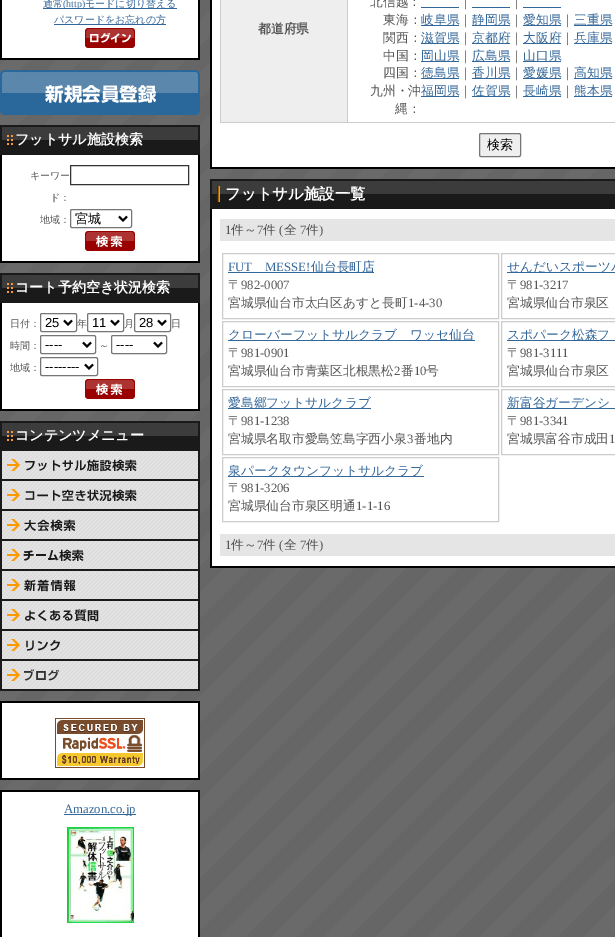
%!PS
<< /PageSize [615 937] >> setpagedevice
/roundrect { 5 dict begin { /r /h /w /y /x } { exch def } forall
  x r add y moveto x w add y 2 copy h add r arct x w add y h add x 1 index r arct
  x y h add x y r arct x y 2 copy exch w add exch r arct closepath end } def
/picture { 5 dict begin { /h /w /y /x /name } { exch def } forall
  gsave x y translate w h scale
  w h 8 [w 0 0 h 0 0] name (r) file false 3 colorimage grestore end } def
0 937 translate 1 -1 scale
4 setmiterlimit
1 setgray
0 0 615 937 rectfill
(img1.rgb) 0 0 615 937 picture
(img2.rgb) 0 0 200 58 picture
0 setgray
0 58 200 2 rectfill
0.2 0.4 0.6 setrgbcolor
43 8 134 1 rectfill
/WenQuanYiZenHei-Medium [10 0 0 -10 0 0] selectfont
43 7 moveto (通常) show
/LiberationSerif-Regular [10 0 0 -10 0 0] selectfont
63 7 moveto (\(http\)) show
/WenQuanYiZenHei-Medium [10 0 0 -10 0 0] selectfont
85 7 moveto (モードに切り替える) show
54 24 112 1 rectfill
54 23 moveto (パスワードをお忘れの方) show
(img3.rgb) 85 28 50 20 picture
(img4.rgb) 0 70 200 45 picture
(img5.rgb) 0 155 200 106 picture
0 setgray
0 261 200 2 rectfill
(img6.rgb) 0 125 200 30 picture
/WenQuanYiZenHei-Bold [14 0 0 -14 0 0] selectfont
1 setgray
15 144 moveto (フットサル施設検索) show
/WenQuanYiZenHei-Medium [10 0 0 -10 0 0] selectfont
0.333 setgray
30 179 moveto (キーワー) show
50 201 moveto (ド：) show
0.2 setgray
70.5 165.5 118 19 rectstroke
0.333 setgray
40 223 moveto (地域：) show
0.463 setgray
70.5 209.5 61 18 1.5 roundrect stroke
0 setgray
2 setlinewidth
newpath 119 216.5 moveto 123 220.5 lineto 127 216.5 lineto stroke
/WenQuanYiZenHei-Medium [13 0 0 -13 0 0] selectfont
75 223 moveto (宮城) show
(img7.rgb) 85 231 50 20 picture
(img5.rgb) 0 303 200 106 picture
0 409 200 2 rectfill
(img6.rgb) 0 273 200 30 picture
/WenQuanYiZenHei-Bold [14 0 0 -14 0 0] selectfont
1 setgray
15 292 moveto (コート予約空き状況検索) show
/WenQuanYiZenHei-Medium [10 0 0 -10 0 0] selectfont
0.333 setgray
10 327 moveto (日付：) show
0.463 setgray
1 setlinewidth
40.5 313.5 36 18 1.5 roundrect stroke
0 setgray
2 setlinewidth
newpath 64 320.5 moveto 68 324.5 lineto 72 320.5 lineto stroke
/LiberationSans-Regular [13 0 0 -13 0 0] selectfont
45 327 moveto (25) show
/WenQuanYiZenHei-Medium [10 0 0 -10 0 0] selectfont
0.333 setgray
77 327 moveto (年) show
0.463 setgray
1 setlinewidth
87.5 313.5 36 18 1.5 roundrect stroke
0 setgray
2 setlinewidth
newpath 111 320.5 moveto 115 324.5 lineto 119 320.5 lineto stroke
/LiberationSans-Regular [13 0 0 -13 0 0] selectfont
92 327 moveto (11) show
/WenQuanYiZenHei-Medium [10 0 0 -10 0 0] selectfont
0.333 setgray
124 327 moveto (月) show
0.463 setgray
1 setlinewidth
134.5 313.5 36 18 1.5 roundrect stroke
0 setgray
2 setlinewidth
newpath 158 320.5 moveto 162 324.5 lineto 166 320.5 lineto stroke
/LiberationSans-Regular [13 0 0 -13 0 0] selectfont
139 327 moveto (28) show
/WenQuanYiZenHei-Medium [10 0 0 -10 0 0] selectfont
0.333 setgray
171 327 moveto (日) show
10 349 moveto (時間：) show
0.463 setgray
1 setlinewidth
40.5 335.5 55 18 1.5 roundrect stroke
0 setgray
2 setlinewidth
newpath 83 342.5 moveto 87 346.5 lineto 91 342.5 lineto stroke
/LiberationSans-Regular [13 0 0 -13 0 0] selectfont
45 349 moveto (----) show
/WenQuanYiZenHei-Medium [10 0 0 -10 0 0] selectfont
0.333 setgray
99 349 moveto (～) show
0.463 setgray
1 setlinewidth
111.5 335.5 55 18 1.5 roundrect stroke
0 setgray
2 setlinewidth
newpath 154 342.5 moveto 158 346.5 lineto 162 342.5 lineto stroke
/LiberationSans-Regular [13 0 0 -13 0 0] selectfont
116 349 moveto (----) show
/WenQuanYiZenHei-Medium [10 0 0 -10 0 0] selectfont
0.333 setgray
10 371 moveto (地域：) show
0.463 setgray
1 setlinewidth
40.5 357.5 57 18 1.5 roundrect stroke
0 setgray
2 setlinewidth
newpath 85 364.5 moveto 89 368.5 lineto 93 364.5 lineto stroke
/LiberationSans-Regular [13 0 0 -13 0 0] selectfont
45 371 moveto (--------) show
(img7.rgb) 85 379 50 20 picture
(img6.rgb) 0 421 200 30 picture
/WenQuanYiZenHei-Bold [14 0 0 -14 0 0] selectfont
1 setgray
15 440 moveto (コンテンツメニュー) show
(img8.rgb) 0 451 200 30 picture
(img9.rgb) 2 451 196 28 picture
(img10.rgb) 0 481 200 30 picture
(img11.rgb) 2 481 196 28 picture
(img12.rgb) 0 511 200 30 picture
(img13.rgb) 2 511 196 28 picture
(img14.rgb) 0 541 200 30 picture
(img15.rgb) 2 541 196 28 picture
(img16.rgb) 0 571 200 30 picture
(img17.rgb) 2 571 196 28 picture
(img18.rgb) 0 601 200 30 picture
(img19.rgb) 2 601 196 28 picture
(img20.rgb) 0 631 200 30 picture
(img21.rgb) 2 631 196 28 picture
(img22.rgb) 0 661 200 30 picture
(img23.rgb) 2 661 196 28 picture
(img24.rgb) 0 703 200 75 picture
0 setgray
0 701 200 2 rectfill
0 778 200 2 rectfill
(img25.rgb) 55 718 90 50 picture
(img26.rgb) 0 792 200 145 picture
0 790 200 2 rectfill
0.2 0.4 0.6 setrgbcolor
64 814 72 1 rectfill
/LiberationSerif-Regular [12.75 0 0 -12.75 0 0] selectfont
64 813 moveto (Amazon.co.jp) show
(img27.rgb) 67 827 67 96 picture
(img28.rgb) 210 0 405 167 picture
0 setgray
210 167 405 2 rectfill
0.8 setgray
220 122 395 1 rectfill
220 0 1 123 rectfill
0.933 setgray
221 0 126 122 rectfill
/WenQuanYiZenHei-Bold [12.75 0 0 -12.75 0 0] selectfont
0.333 setgray
258 33 moveto (都道府県) show
0.8 setgray
347 0 1 123 rectfill
/WenQuanYiZenHei-Medium [12.75 0 0 -12.75 0 0] selectfont
0.333 setgray
370 6 moveto (北信越：) show
0.2 0.4 0.6 setrgbcolor
421 7 38 1 rectfill
0.333 setgray
459 6 moveto (｜) show
0.2 0.4 0.6 setrgbcolor
472 7 38 1 rectfill
0.333 setgray
510 6 moveto (｜) show
0.2 0.4 0.6 setrgbcolor
523 7 38 1 rectfill
0.333 setgray
383 24 moveto (東海：) show
0.2 0.4 0.6 setrgbcolor
421 25 38 1 rectfill
421 24 moveto (岐阜県) show
0.333 setgray
459 24 moveto (｜) show
0.2 0.4 0.6 setrgbcolor
472 25 38 1 rectfill
472 24 moveto (静岡県) show
0.333 setgray
510 24 moveto (｜) show
0.2 0.4 0.6 setrgbcolor
523 25 38 1 rectfill
523 24 moveto (愛知県) show
0.333 setgray
561 24 moveto (｜) show
0.2 0.4 0.6 setrgbcolor
574 25 38 1 rectfill
574 24 moveto (三重県) show
0.333 setgray
383 42 moveto (関西：) show
0.2 0.4 0.6 setrgbcolor
421 43 38 1 rectfill
421 42 moveto (滋賀県) show
0.333 setgray
459 42 moveto (｜) show
0.2 0.4 0.6 setrgbcolor
472 43 38 1 rectfill
472 42 moveto (京都府) show
0.333 setgray
510 42 moveto (｜) show
0.2 0.4 0.6 setrgbcolor
523 43 38 1 rectfill
523 42 moveto (大阪府) show
0.333 setgray
561 42 moveto (｜) show
0.2 0.4 0.6 setrgbcolor
574 43 38 1 rectfill
574 42 moveto (兵庫県) show
0.333 setgray
383 60 moveto (中国：) show
0.2 0.4 0.6 setrgbcolor
421 61 38 1 rectfill
421 60 moveto (岡山県) show
0.333 setgray
459 60 moveto (｜) show
0.2 0.4 0.6 setrgbcolor
472 61 38 1 rectfill
472 60 moveto (広島県) show
0.333 setgray
510 60 moveto (｜) show
0.2 0.4 0.6 setrgbcolor
523 61 38 1 rectfill
523 60 moveto (山口県) show
0.333 setgray
383 77 moveto (四国：) show
0.2 0.4 0.6 setrgbcolor
421 78 38 1 rectfill
421 77 moveto (徳島県) show
0.333 setgray
459 77 moveto (｜) show
0.2 0.4 0.6 setrgbcolor
472 78 38 1 rectfill
472 77 moveto (香川県) show
0.333 setgray
510 77 moveto (｜) show
0.2 0.4 0.6 setrgbcolor
523 78 38 1 rectfill
523 77 moveto (愛媛県) show
0.333 setgray
561 77 moveto (｜) show
0.2 0.4 0.6 setrgbcolor
574 78 38 1 rectfill
574 77 moveto (高知県) show
0.333 setgray
370 95 moveto (九州・沖) show
395 113 moveto (縄：) show
0.2 0.4 0.6 setrgbcolor
421 96 38 1 rectfill
421 95 moveto (福岡県) show
0.333 setgray
459 95 moveto (｜) show
0.2 0.4 0.6 setrgbcolor
472 96 38 1 rectfill
472 95 moveto (佐賀県) show
0.333 setgray
510 95 moveto (｜) show
0.2 0.4 0.6 setrgbcolor
523 96 38 1 rectfill
523 95 moveto (長崎県) show
0.333 setgray
561 95 moveto (｜) show
0.2 0.4 0.6 setrgbcolor
574 96 38 1 rectfill
574 95 moveto (熊本県) show
0.937 setgray
479.5 133.5 41 23 1.5 roundrect gsave fill grestore
0.463 setgray
1 setlinewidth
stroke
/WenQuanYiZenHei-Medium [13 0 0 -13 0 0] selectfont
0 setgray
487 149 moveto (検索) show
(img29.rgb) 210 209 405 357 picture
210 566 405 2 rectfill
(img30.rgb) 210 179 405 30 picture
/WenQuanYiZenHei-Bold [15.4 0 0 -15.4 0 0] selectfont
1 setgray
225 199 moveto (フットサル施設一覧) show
0.898 setgray
220 219 395 22 rectfill
/LiberationSerif-Regular [12.75 0 0 -12.75 0 0] selectfont
0.333 setgray
225 234 moveto (1) show
/WenQuanYiZenHei-Medium [12.75 0 0 -12.75 0 0] selectfont
231 234 moveto (件～) show
/LiberationSerif-Regular [12.75 0 0 -12.75 0 0] selectfont
257 234 moveto (7) show
/WenQuanYiZenHei-Medium [12.75 0 0 -12.75 0 0] selectfont
263 234 moveto (件) show
/LiberationSerif-Regular [12.75 0 0 -12.75 0 0] selectfont
279 234 moveto (\() show
/WenQuanYiZenHei-Medium [12.75 0 0 -12.75 0 0] selectfont
284 234 moveto (全) show
/LiberationSerif-Regular [12.75 0 0 -12.75 0 0] selectfont
300 234 moveto (7) show
/WenQuanYiZenHei-Medium [12.75 0 0 -12.75 0 0] selectfont
306 234 moveto (件) show
/LiberationSerif-Regular [12.75 0 0 -12.75 0 0] selectfont
319 234 moveto (\)) show
0.8 setgray
222.5 253.5 276 65 rectstroke
0.2 0.4 0.6 setrgbcolor
228 271 moveto (FUT) show
228 272 146 1 rectfill
265 271 moveto (MESSE!) show
/WenQuanYiZenHei-Medium [12.75 0 0 -12.75 0 0] selectfont
311 271 moveto (仙台長町店) show
0.333 setgray
228 289 moveto (〒) show
/LiberationSerif-Regular [12.75 0 0 -12.75 0 0] selectfont
241 289 moveto (982-0007) show
/WenQuanYiZenHei-Medium [12.75 0 0 -12.75 0 0] selectfont
228 307 moveto (宮城県仙台市太白区あすと長町) show
/LiberationSerif-Regular [12.75 0 0 -12.75 0 0] selectfont
408 307 moveto (1-4-30) show
0.8 setgray
501.5 253.5 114 65 rectstroke
0.2 0.4 0.6 setrgbcolor
507 272 108 1 rectfill
/WenQuanYiZenHei-Medium [12.75 0 0 -12.75 0 0] selectfont
507 271 moveto (せんだいスポーツパ) show
0.333 setgray
507 289 moveto (〒) show
/LiberationSerif-Regular [12.75 0 0 -12.75 0 0] selectfont
520 289 moveto (981-3217) show
/WenQuanYiZenHei-Medium [12.75 0 0 -12.75 0 0] selectfont
507 307 moveto (宮城県仙台市泉区) show
0.8 setgray
222.5 321.5 276 65 rectstroke
0.2 0.4 0.6 setrgbcolor
228 340 247 1 rectfill
228 339 moveto (クローバーフットサルクラブ　ワッセ仙台) show
0.333 setgray
228 357 moveto (〒) show
/LiberationSerif-Regular [12.75 0 0 -12.75 0 0] selectfont
241 357 moveto (981-0901) show
/WenQuanYiZenHei-Medium [12.75 0 0 -12.75 0 0] selectfont
228 375 moveto (宮城県仙台市青葉区北根黒松) show
/LiberationSerif-Regular [12.75 0 0 -12.75 0 0] selectfont
394 375 moveto (2) show
/WenQuanYiZenHei-Medium [12.75 0 0 -12.75 0 0] selectfont
401 375 moveto (番) show
/LiberationSerif-Regular [12.75 0 0 -12.75 0 0] selectfont
414 375 moveto (10) show
/WenQuanYiZenHei-Medium [12.75 0 0 -12.75 0 0] selectfont
426 375 moveto (号) show
0.8 setgray
501.5 321.5 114 65 rectstroke
0.2 0.4 0.6 setrgbcolor
507 340 108 1 rectfill
507 339 moveto (スポパーク松森フ) show
0.333 setgray
507 357 moveto (〒) show
/LiberationSerif-Regular [12.75 0 0 -12.75 0 0] selectfont
520 357 moveto (981-3111) show
/WenQuanYiZenHei-Medium [12.75 0 0 -12.75 0 0] selectfont
507 375 moveto (宮城県仙台市泉区) show
0.8 setgray
222.5 389.5 276 65 rectstroke
0.2 0.4 0.6 setrgbcolor
228 408 143 1 rectfill
228 407 moveto (愛島郷フットサルクラブ) show
0.333 setgray
228 425 moveto (〒) show
/LiberationSerif-Regular [12.75 0 0 -12.75 0 0] selectfont
241 425 moveto (981-1238) show
/WenQuanYiZenHei-Medium [12.75 0 0 -12.75 0 0] selectfont
228 443 moveto (宮城県名取市愛島笠島字西小泉) show
/LiberationSerif-Regular [12.75 0 0 -12.75 0 0] selectfont
407 443 moveto (3) show
/WenQuanYiZenHei-Medium [12.75 0 0 -12.75 0 0] selectfont
414 443 moveto (番地内) show
0.8 setgray
501.5 389.5 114 65 rectstroke
0.2 0.4 0.6 setrgbcolor
507 408 108 1 rectfill
507 407 moveto (新富谷ガーデンシ) show
0.333 setgray
507 425 moveto (〒) show
/LiberationSerif-Regular [12.75 0 0 -12.75 0 0] selectfont
520 425 moveto (981-3341) show
/WenQuanYiZenHei-Medium [12.75 0 0 -12.75 0 0] selectfont
507 443 moveto (宮城県富谷市成田) show
/LiberationSerif-Regular [12.75 0 0 -12.75 0 0] selectfont
609 443 moveto (1) show
0.8 setgray
222.5 457.5 276 64 rectstroke
0.2 0.4 0.6 setrgbcolor
228 476 196 1 rectfill
/WenQuanYiZenHei-Medium [12.75 0 0 -12.75 0 0] selectfont
228 475 moveto (泉パークタウンフットサルクラブ) show
0.333 setgray
228 492 moveto (〒) show
/LiberationSerif-Regular [12.75 0 0 -12.75 0 0] selectfont
241 492 moveto (981-3206) show
/WenQuanYiZenHei-Medium [12.75 0 0 -12.75 0 0] selectfont
228 510 moveto (宮城県仙台市泉区明通) show
/LiberationSerif-Regular [12.75 0 0 -12.75 0 0] selectfont
356 510 moveto (1-1-16) show
0.898 setgray
220 534 395 22 rectfill
0.333 setgray
225 549 moveto (1) show
/WenQuanYiZenHei-Medium [12.75 0 0 -12.75 0 0] selectfont
231 549 moveto (件～) show
/LiberationSerif-Regular [12.75 0 0 -12.75 0 0] selectfont
257 549 moveto (7) show
/WenQuanYiZenHei-Medium [12.75 0 0 -12.75 0 0] selectfont
263 549 moveto (件) show
/LiberationSerif-Regular [12.75 0 0 -12.75 0 0] selectfont
279 549 moveto (\() show
/WenQuanYiZenHei-Medium [12.75 0 0 -12.75 0 0] selectfont
284 549 moveto (全) show
/LiberationSerif-Regular [12.75 0 0 -12.75 0 0] selectfont
300 549 moveto (7) show
/WenQuanYiZenHei-Medium [12.75 0 0 -12.75 0 0] selectfont
306 549 moveto (件) show
/LiberationSerif-Regular [12.75 0 0 -12.75 0 0] selectfont
319 549 moveto (\)) show
showpage
